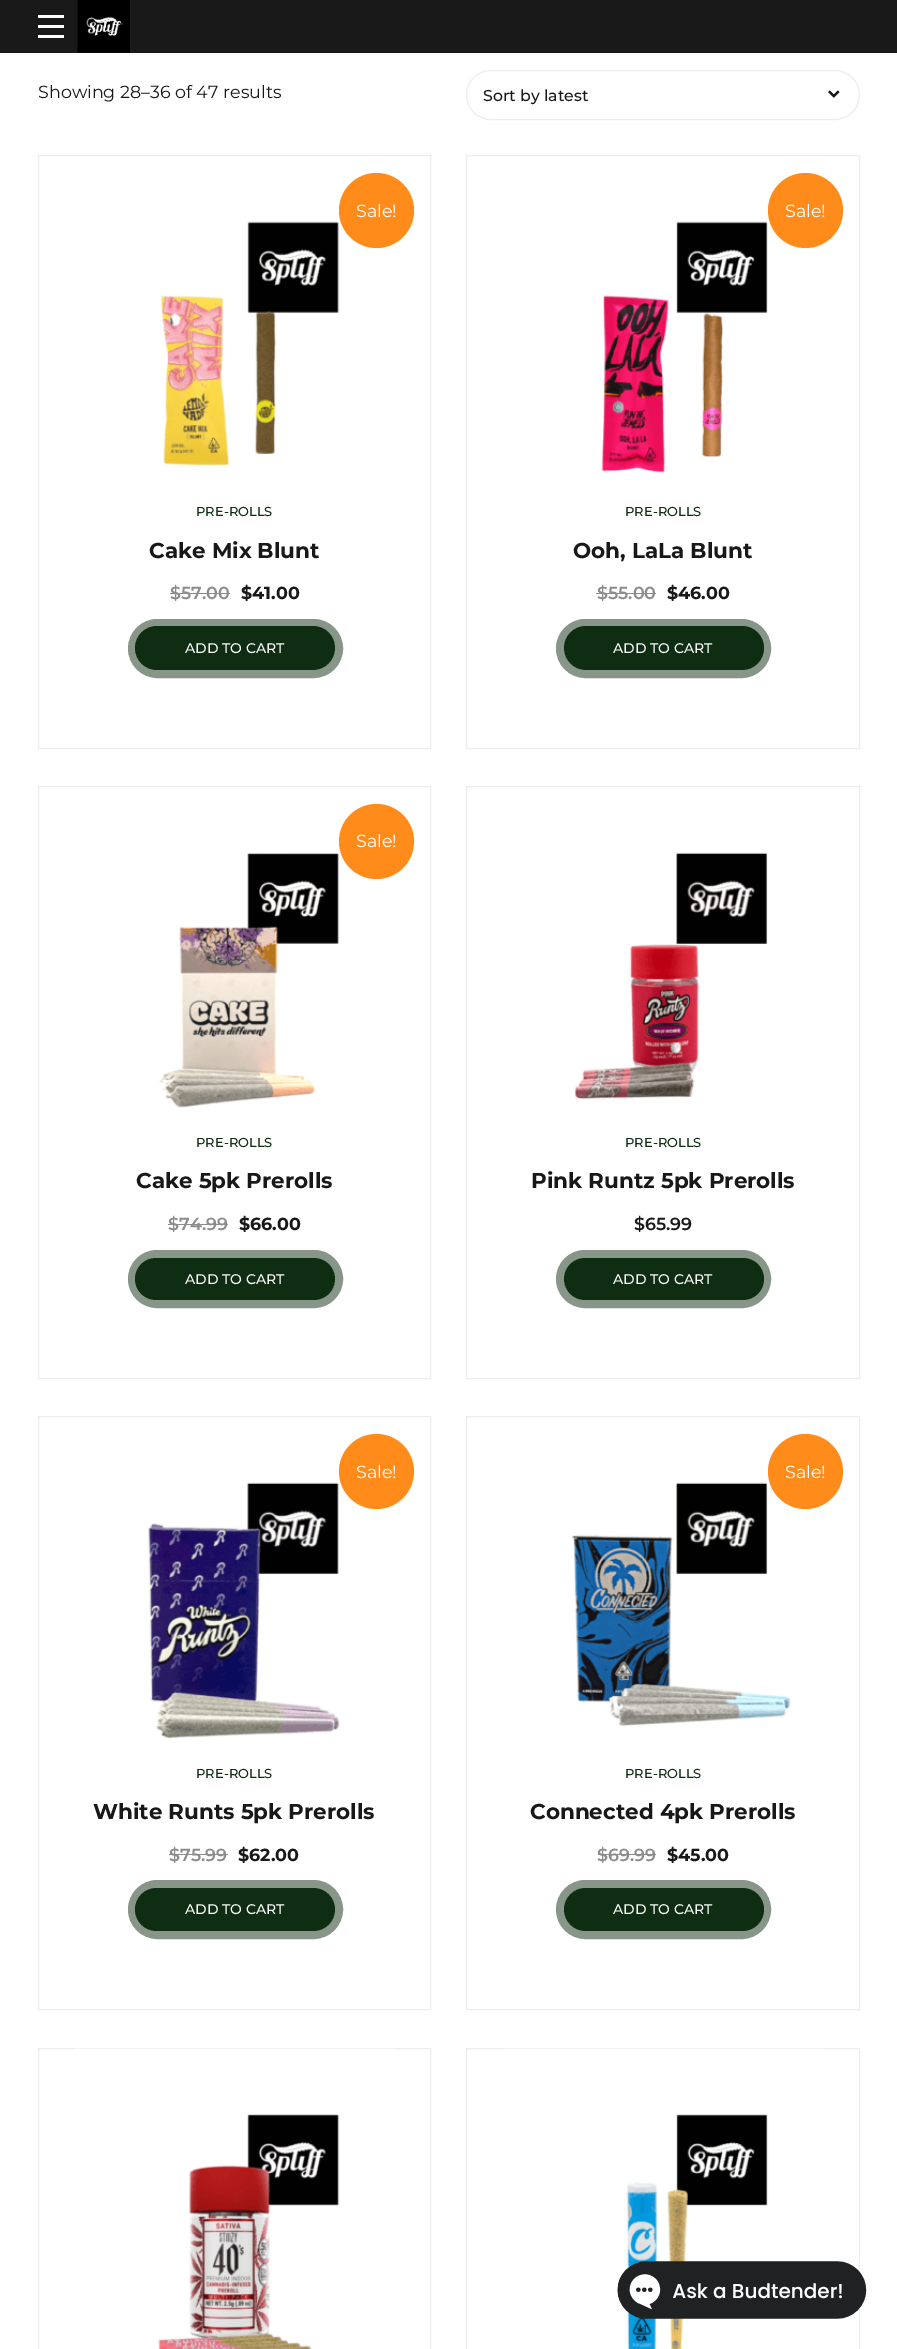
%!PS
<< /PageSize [897 2349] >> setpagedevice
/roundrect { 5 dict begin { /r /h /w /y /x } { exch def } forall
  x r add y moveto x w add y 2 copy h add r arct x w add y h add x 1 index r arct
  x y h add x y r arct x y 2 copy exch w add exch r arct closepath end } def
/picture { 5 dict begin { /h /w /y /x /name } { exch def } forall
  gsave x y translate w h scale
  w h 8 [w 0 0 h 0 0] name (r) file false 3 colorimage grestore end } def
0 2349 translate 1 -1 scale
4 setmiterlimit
1 setgray
0 0 897 2349 rectfill
0.098 setgray
0 0 897 53 rectfill
1 setgray
38 15 26 3 rectfill
38 25 26 3 rectfill
38 35 26 3 rectfill
(img1.rgb) 77 0 53 53 picture
/Montserrat-Regular [17.5 0 0 -17.5 0 0] selectfont
0.094 setgray
38 98 moveto (Showing 28–36 of 47 results) show
0.929 setgray
466.5 70.5 393 49 24.5 roundrect stroke
/Montserrat-Medium [15.75 0 0 -15.75 0 0] selectfont
0.094 setgray
483 101 moveto (Sort by latest) show
(img2.rgb) 828 90 12 8 picture
0.929 setgray
38.5 155.5 392 593 rectstroke
(img3.rgb) 160 221 180 245 picture
1 0.549 0.102 setrgbcolor
newpath 376.5 210.5 37.5 0 360 arc closepath fill
/Montserrat-Regular [17.5 0 0 -17.5 0 0] selectfont
1 setgray
356 217 moveto (Sale!) show
/Montserrat-Medium [13 0 0 -13 0 0] selectfont
0.059 0.176 0.071 setrgbcolor
196 516 moveto (PRE-ROLLS) show
/Montserrat-Bold [21.5 0 0 -21.5 0 0] selectfont
0.094 setgray
149 558 moveto (Cake Mix Blunt) show
/Montserrat-SemiBold [17.5 0 0 -17.5 0 0] selectfont
0.549 setgray
170 599 moveto ($57.00) show
170 593 60 1 rectfill
/Montserrat-Bold [17.5 0 0 -17.5 0 0] selectfont
0.094 setgray
241 599 moveto ($41.00) show
0.529 0.588 0.537 setrgbcolor
8 setlinewidth
132 623 207 51 25.5 roundrect stroke
0.059 0.176 0.071 setrgbcolor
135 626 200 44 22 roundrect fill
/Montserrat-Medium [14 0 0 -14 0 0] selectfont
1 setgray
185 653 moveto (ADD TO CART) show
0.929 setgray
1 setlinewidth
466.5 155.5 393 593 rectstroke
1 0.549 0.102 setrgbcolor
newpath 805.5 210.5 37.5 0 360 arc closepath fill
/Montserrat-Regular [17.5 0 0 -17.5 0 0] selectfont
1 setgray
785 217 moveto (Sale!) show
(img4.rgb) 601 221 167 252 picture
/Montserrat-Medium [13 0 0 -13 0 0] selectfont
0.059 0.176 0.071 setrgbcolor
625 516 moveto (PRE-ROLLS) show
/Montserrat-Bold [21.5 0 0 -21.5 0 0] selectfont
0.094 setgray
573 558 moveto (Ooh, LaLa Blunt) show
/Montserrat-SemiBold [17.5 0 0 -17.5 0 0] selectfont
0.549 setgray
597 599 moveto ($) show
596 593 12 1 rectfill
608 599 moveto (55.00) show
608 593 48 1 rectfill
/Montserrat-Bold [17.5 0 0 -17.5 0 0] selectfont
0.094 setgray
667 599 moveto ($46.00) show
0.529 0.588 0.537 setrgbcolor
8 setlinewidth
560 623 207 51 25.5 roundrect stroke
0.059 0.176 0.071 setrgbcolor
564 626 200 44 22 roundrect fill
/Montserrat-Medium [14 0 0 -14 0 0] selectfont
1 setgray
613 653 moveto (ADD TO CART) show
0.929 setgray
1 setlinewidth
38.5 786.5 392 592 rectstroke
(img5.rgb) 159 852 181 256 picture
1 0.549 0.102 setrgbcolor
newpath 376.5 841.5 37.5 0 360 arc closepath fill
/Montserrat-Regular [17.5 0 0 -17.5 0 0] selectfont
1 setgray
356 847 moveto (Sale!) show
/Montserrat-Medium [13 0 0 -13 0 0] selectfont
0.059 0.176 0.071 setrgbcolor
196 1147 moveto (PRE-ROLLS) show
/Montserrat-Bold [21.5 0 0 -21.5 0 0] selectfont
0.094 setgray
136 1188 moveto (Cake 5pk Prerolls) show
/Montserrat-SemiBold [17.5 0 0 -17.5 0 0] selectfont
0.549 setgray
168 1230 moveto ($74.99) show
168 1224 60 1 rectfill
/Montserrat-Bold [17.5 0 0 -17.5 0 0] selectfont
0.094 setgray
239 1230 moveto ($66.00) show
0.529 0.588 0.537 setrgbcolor
8 setlinewidth
132 1254 207 50 25 roundrect stroke
0.059 0.176 0.071 setrgbcolor
135 1258 200 42 21 roundrect fill
/Montserrat-Medium [14 0 0 -14 0 0] selectfont
1 setgray
185 1284 moveto (ADD TO CART) show
0.929 setgray
1 setlinewidth
466.5 786.5 393 592 rectstroke
(img6.rgb) 574 852 194 248 picture
/Montserrat-Medium [13 0 0 -13 0 0] selectfont
0.059 0.176 0.071 setrgbcolor
625 1147 moveto (PRE-ROLLS) show
/Montserrat-Bold [21.5 0 0 -21.5 0 0] selectfont
0.094 setgray
531 1188 moveto (Pink Runtz 5pk Prerolls) show
/Montserrat-SemiBold [17.5 0 0 -17.5 0 0] selectfont
634 1230 moveto ($65.99) show
0.529 0.588 0.537 setrgbcolor
8 setlinewidth
560 1254 207 50 25 roundrect stroke
0.059 0.176 0.071 setrgbcolor
564 1258 200 42 21 roundrect fill
/Montserrat-Medium [14 0 0 -14 0 0] selectfont
1 setgray
613 1284 moveto (ADD TO CART) show
0.929 setgray
1 setlinewidth
38.5 1416.5 392 593 rectstroke
(img7.rgb) 148 1482 192 257 picture
1 0.549 0.102 setrgbcolor
newpath 376.5 1471.5 37.5 0 360 arc closepath fill
/Montserrat-Regular [17.5 0 0 -17.5 0 0] selectfont
1 setgray
356 1478 moveto (Sale!) show
/Montserrat-Medium [13 0 0 -13 0 0] selectfont
0.059 0.176 0.071 setrgbcolor
196 1778 moveto (PRE-ROLLS) show
/Montserrat-Bold [21.5 0 0 -21.5 0 0] selectfont
0.094 setgray
93 1819 moveto (White Runts 5pk Prerolls) show
/Montserrat-SemiBold [17.5 0 0 -17.5 0 0] selectfont
0.549 setgray
169 1861 moveto ($75.99) show
169 1854 59 1 rectfill
/Montserrat-Bold [17.5 0 0 -17.5 0 0] selectfont
0.094 setgray
238 1861 moveto ($62.00) show
0.529 0.588 0.537 setrgbcolor
8 setlinewidth
132 1884 207 51 25.5 roundrect stroke
0.059 0.176 0.071 setrgbcolor
135 1888 200 43 21.5 roundrect fill
/Montserrat-Medium [14 0 0 -14 0 0] selectfont
1 setgray
185 1914 moveto (ADD TO CART) show
0.929 setgray
1 setlinewidth
466.5 1416.5 393 593 rectstroke
(img8.rgb) 572 1482 219 244 picture
1 0.549 0.102 setrgbcolor
newpath 805.5 1471.5 37.5 0 360 arc closepath fill
/Montserrat-Regular [17.5 0 0 -17.5 0 0] selectfont
1 setgray
785 1478 moveto (Sale!) show
/Montserrat-Medium [13 0 0 -13 0 0] selectfont
0.059 0.176 0.071 setrgbcolor
625 1778 moveto (PRE-ROLLS) show
/Montserrat-Bold [21.5 0 0 -21.5 0 0] selectfont
0.094 setgray
530 1819 moveto (Connected 4pk Prerolls) show
/Montserrat-SemiBold [17.5 0 0 -17.5 0 0] selectfont
0.549 setgray
597 1861 moveto ($69.99) show
598 1854 58 1 rectfill
/Montserrat-Bold [17.5 0 0 -17.5 0 0] selectfont
0.094 setgray
667 1861 moveto ($45.00) show
0.529 0.588 0.537 setrgbcolor
8 setlinewidth
560 1884 207 51 25.5 roundrect stroke
0.059 0.176 0.071 setrgbcolor
564 1888 200 43 21.5 roundrect fill
/Montserrat-Medium [14 0 0 -14 0 0] selectfont
1 setgray
613 1914 moveto (ADD TO CART) show
0.929 setgray
1 setlinewidth
38.5 2048.5 392 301 rectstroke
(img9.rgb) 74 2048 321 301 picture
466.5 2048.5 393 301 rectstroke
(img10.rgb) 503 2048 320 301 picture
(img11.rgb) 617 2261 250 58 picture
showpage
